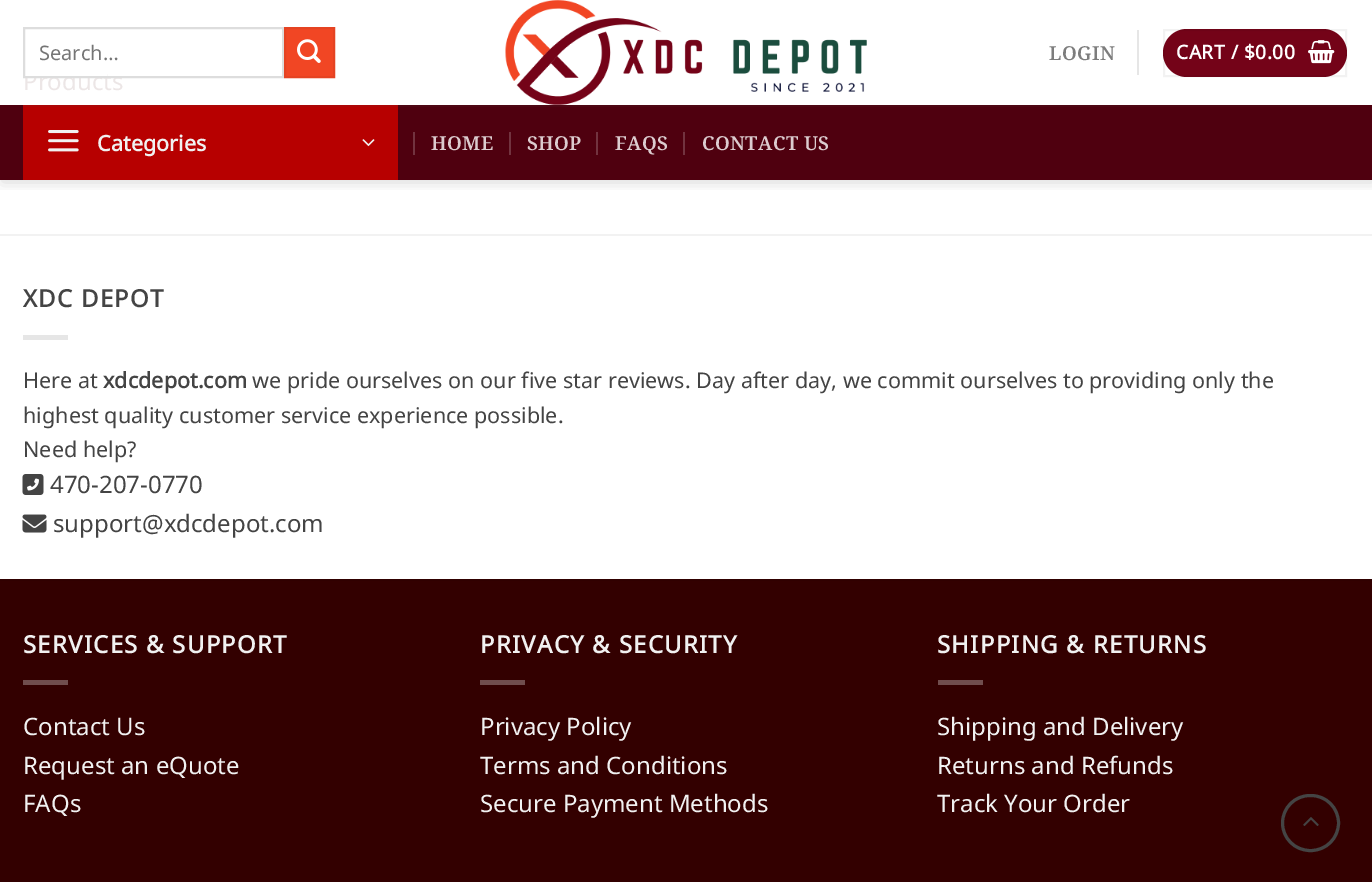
%!PS
<< /PageSize [1372 882] /PageUsesTransparency true >> setpagedevice
/alpha { dup .setfillconstantalpha .setstrokeconstantalpha } def
/roundrect { 5 dict begin { /r /h /w /y /x } { exch def } forall
  x r add y moveto x w add y 2 copy h add r arct x w add y h add x 1 index r arct
  x y h add x y r arct x y 2 copy exch w add exch r arct closepath end } def
/shadow { 12 dict begin { /a /b /q /h /w /y /x } { exch def } forall gsave /was 0 def
  9 -2 -9 { dup b mul 4 div /e exch def 1 sub .425 mul 2.718 exch exp 1 add a .99 .min exch div /now exch def
    1 1 now sub 1 was sub div sub alpha /was now def
    w h .min e 2 mul add 0 gt { x e sub y e sub w e 2 mul add h e 2 mul add
      q e add b .6 mul add w h .min 2 div e add .min 0 .max roundrect fill } if } for grestore end } def
/picture { 5 dict begin { /h /w /y /x /name } { exch def } forall
  gsave x y translate w h scale
  w h 8 [w 0 0 h 0 0] name (r) file false 3 colorimage grestore end } def
0 .pushpdf14devicefilter
0 882 translate 1 -1 scale
4 setmiterlimit
1 setgray
0 0 1372 882 rectfill
gsave
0 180 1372 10 rectclip
0 setgray
2 2 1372 180 0 7.5 0.15 shadow
grestore
/NotoSans-Regular [24 0 0 -24 0 0] selectfont
0.925 0.902 0.902 setrgbcolor
23 90 moveto (Products) show
1 setgray
25 71 82 5 rectfill
0.867 setgray
2 setlinewidth
24 28 259 49 rectstroke
/NotoSans-Regular [20 0 0 -20 0 0] selectfont
0.459 setgray
39 60 moveto (Search…) show
0.945 0.275 0.141 setrgbcolor
newpath 285 28 moveto 334 28 lineto 334 77 lineto 285 77 lineto closepath gsave fill grestore
0.898 0.263 0.133 setrgbcolor
stroke
(img1.rgb) 297 39 24 24 picture
(img2.rgb) 505 0 362 105 picture
/NotoSerif-SemiBold [19.25 0 0 -19.25 0 0] selectfont
0.49 setgray
1049 60 moveto 0.4 0 (LOGIN) ashow
0.902 setgray
1137 30 2 45 rectfill
0.455 0.012 0.094 setrgbcolor
1163 29 184 48 24 roundrect fill
0.05 alpha
0 setgray
1164 30 182 46 rectstroke
/NotoSans-Bold [19.25 0 0 -19.25 0 0] selectfont
1 alpha
1 setgray
1176 59 moveto 0.5 0 (CART / $0.00) ashow
(img3.rgb) 1308 40 27 24 picture
0.31 0 0.059 setrgbcolor
0 105 1372 75 rectfill
0.306 0.027 0.078 setrgbcolor
398 105 952 2 rectfill
0.718 0 0 setrgbcolor
23 107 375 73 rectfill
0.675 0.027 0.027 setrgbcolor
23 105 375 2 rectfill
(img4.rgb) 48 130 31 22 picture
/NotoSans-Bold [21.6 0 0 -21.6 0 0] selectfont
0.945 setgray
97 151 moveto (Categories) show
(img5.rgb) 362 139 13 8 picture
0.447 0.2 0.247 setrgbcolor
413 132 2 23 rectfill
/NotoSerif-SemiBold [19.25 0 0 -19.25 0 0] selectfont
0.863 0.8 0.812 setrgbcolor
431 150 moveto 0.4 0 (HOME) ashow
0.447 0.2 0.247 setrgbcolor
509 132 2 23 rectfill
0.863 0.8 0.812 setrgbcolor
527 150 moveto 0.4 0 (SHOP) ashow
0.447 0.2 0.247 setrgbcolor
596 132 2 23 rectfill
0.863 0.8 0.812 setrgbcolor
615 150 moveto 0.4 0 (FAQS) ashow
0.447 0.2 0.247 setrgbcolor
683 132 2 23 rectfill
0.863 0.8 0.812 setrgbcolor
702 150 moveto 0.4 0 (CONTACT US) ashow
0.949 setgray
0 234 1372 2 rectfill
/NotoSans-Bold [24 0 0 -24 0 0] selectfont
0.267 setgray
23 307 moveto 1.25 0 (XDC DEPOT) ashow
0.902 setgray
23 335 45 5 rectfill
/NotoSans-Regular [21.6 0 0 -21.6 0 0] selectfont
0.267 setgray
23 388 moveto (Here at) show
/NotoSans-Bold [21.6 0 0 -21.6 0 0] selectfont
103 388 moveto (xdcdepot.com) show
/NotoSans-Regular [21.6 0 0 -21.6 0 0] selectfont
252 388 moveto (we pride ourselves on our five star reviews. Day after day, we commit ourselves to providing only the) show
23 423 moveto (highest quality customer service experience possible.) show
23 457 moveto (Need help?) show
(img6.rgb) 22 474 22 21 picture
/NotoSans-Regular [24 0 0 -24 0 0] selectfont
50 493 moveto (470-207-0770) show
(img7.rgb) 22 514 25 19 picture
53 532 moveto (support@xdcdepot.com) show
0.2 0 0 setrgbcolor
0 581 1372 301 rectfill
0.188 0 0 setrgbcolor
0 579 1372 2 rectfill
/NotoSans-Bold [24 0 0 -24 0 0] selectfont
0.945 setgray
23 653 moveto 1.25 0 (SERVICES & SUPPORT) ashow
0.439 0.302 0.302 setrgbcolor
23 680 45 5 rectfill
/NotoSans-Regular [24 0 0 -24 0 0] selectfont
0.945 setgray
23 735 moveto (Contact Us) show
23 774 moveto (Request an eQuote) show
23 812 moveto (FAQs) show
/NotoSans-Bold [24 0 0 -24 0 0] selectfont
480 653 moveto 1.25 0 (PRIVACY & SECURITY) ashow
0.439 0.302 0.302 setrgbcolor
480 680 45 5 rectfill
/NotoSans-Regular [24 0 0 -24 0 0] selectfont
0.945 setgray
480 735 moveto (Privacy Policy) show
480 774 moveto (Terms and Conditions) show
480 812 moveto (Secure Payment Methods) show
/NotoSans-Bold [24 0 0 -24 0 0] selectfont
937 653 moveto 1.25 0 (SHIPPING & RETURNS) ashow
0.439 0.302 0.302 setrgbcolor
938 680 45 5 rectfill
/NotoSans-Regular [24 0 0 -24 0 0] selectfont
0.945 setgray
937 735 moveto (Shipping and Delivery) show
937 774 moveto (Returns and Refunds) show
937 812 moveto (Track Your Order) show
0.267 setgray
3 setlinewidth
1282.5 795.5 56 55 27.5 roundrect stroke
(img8.rgb) 1303 817 16 9 picture
.poppdf14devicefilter showpage
